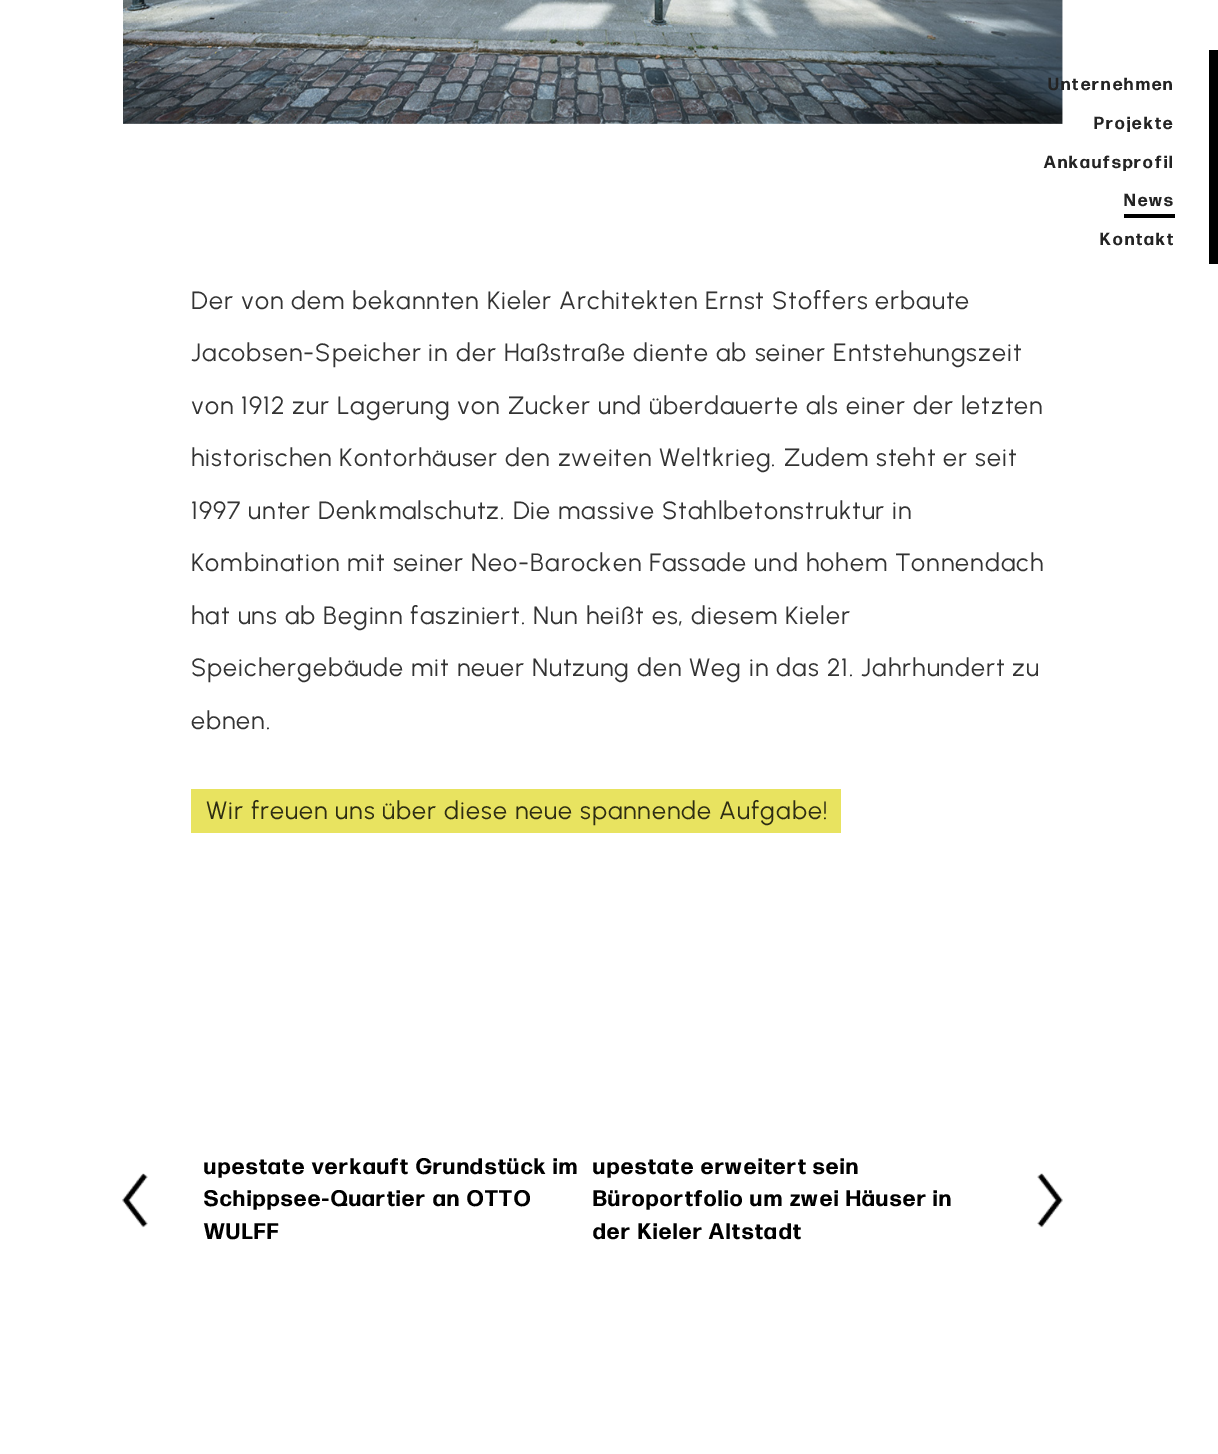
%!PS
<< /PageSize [1218 1454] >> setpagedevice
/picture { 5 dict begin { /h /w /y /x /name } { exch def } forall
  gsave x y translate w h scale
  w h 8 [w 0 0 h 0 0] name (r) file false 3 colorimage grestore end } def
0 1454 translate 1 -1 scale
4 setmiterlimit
1 setgray
0 0 1218 1454 rectfill
(img1.rgb) 123 0 940 124 picture
/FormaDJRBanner-Bold [17.5 0 0 -17.5 0 0] selectfont
0.137 setgray
1048 90 moveto 2.25 0 (Unternehmen) ashow
1094 129 moveto 2.25 0 (Projekte) ashow
1044 168 moveto 2.25 0 (Ankaufsprofil) ashow
1124 206 moveto 2.25 0 (News) ashow
0 setgray
1124 214 51 4 rectfill
0.137 setgray
1100 245 moveto 2.25 0 (Kontakt) ashow
0 setgray
1209 50 9 214 rectfill
/Urbanist-Regular [25 0 0 -25 0 0] selectfont
0.2 setgray
191 309 moveto 1 0 (Der von dem bekannten Kieler Architekten Ernst Stoffers erbaute) ashow
191 361 moveto 1 0 (Jacobsen-Speicher in der Haßstraße diente ab seiner Entstehungszeit) ashow
191 414 moveto 1 0 (von 1912 zur Lagerung von Zucker und überdauerte als einer der letzten) ashow
191 466 moveto 1 0 (historischen Kontorhäuser den zweiten Weltkrieg. Zudem steht er seit) ashow
191 519 moveto 1 0 (1997 unter Denkmalschutz. Die massive Stahlbetonstruktur in) ashow
191 571 moveto 1 0 (Kombination mit seiner Neo-Barocken Fassade und hohem Tonnendach) ashow
191 624 moveto 1 0 (hat uns ab Beginn fasziniert. Nun heißt es, diesem Kieler) ashow
191 676 moveto 1 0 (Speichergebäude mit neuer Nutzung den Weg in das 21. Jahrhundert zu) ashow
191 729 moveto 1 0 (ebnen.) ashow
0.91 0.89 0.376 setrgbcolor
191 789 650 44 rectfill
0.18 0.176 0.075 setrgbcolor
206 819 moveto 1 0 (Wir freuen uns über diese neue spannende Aufgabe!) ashow
(img2.rgb) 122 1173 26 55 picture
/FormaDJRBanner-Bold [22.5 0 0 -22.5 0 0] selectfont
0 setgray
204 1174 moveto 1.8 0 (upestate verkauft Grundstück im) ashow
204 1206 moveto 1.8 0 (Schippsee-Quartier an OTTO) ashow
204 1239 moveto 1.8 0 (WULFF) ashow
593 1174 moveto 1.8 0 (upestate erweitert sein) ashow
593 1206 moveto 1.8 0 (Büroportfolio um zwei Häuser in) ashow
593 1239 moveto 1.8 0 (der Kieler Altstadt) ashow
(img3.rgb) 1037 1173 26 55 picture
showpage
